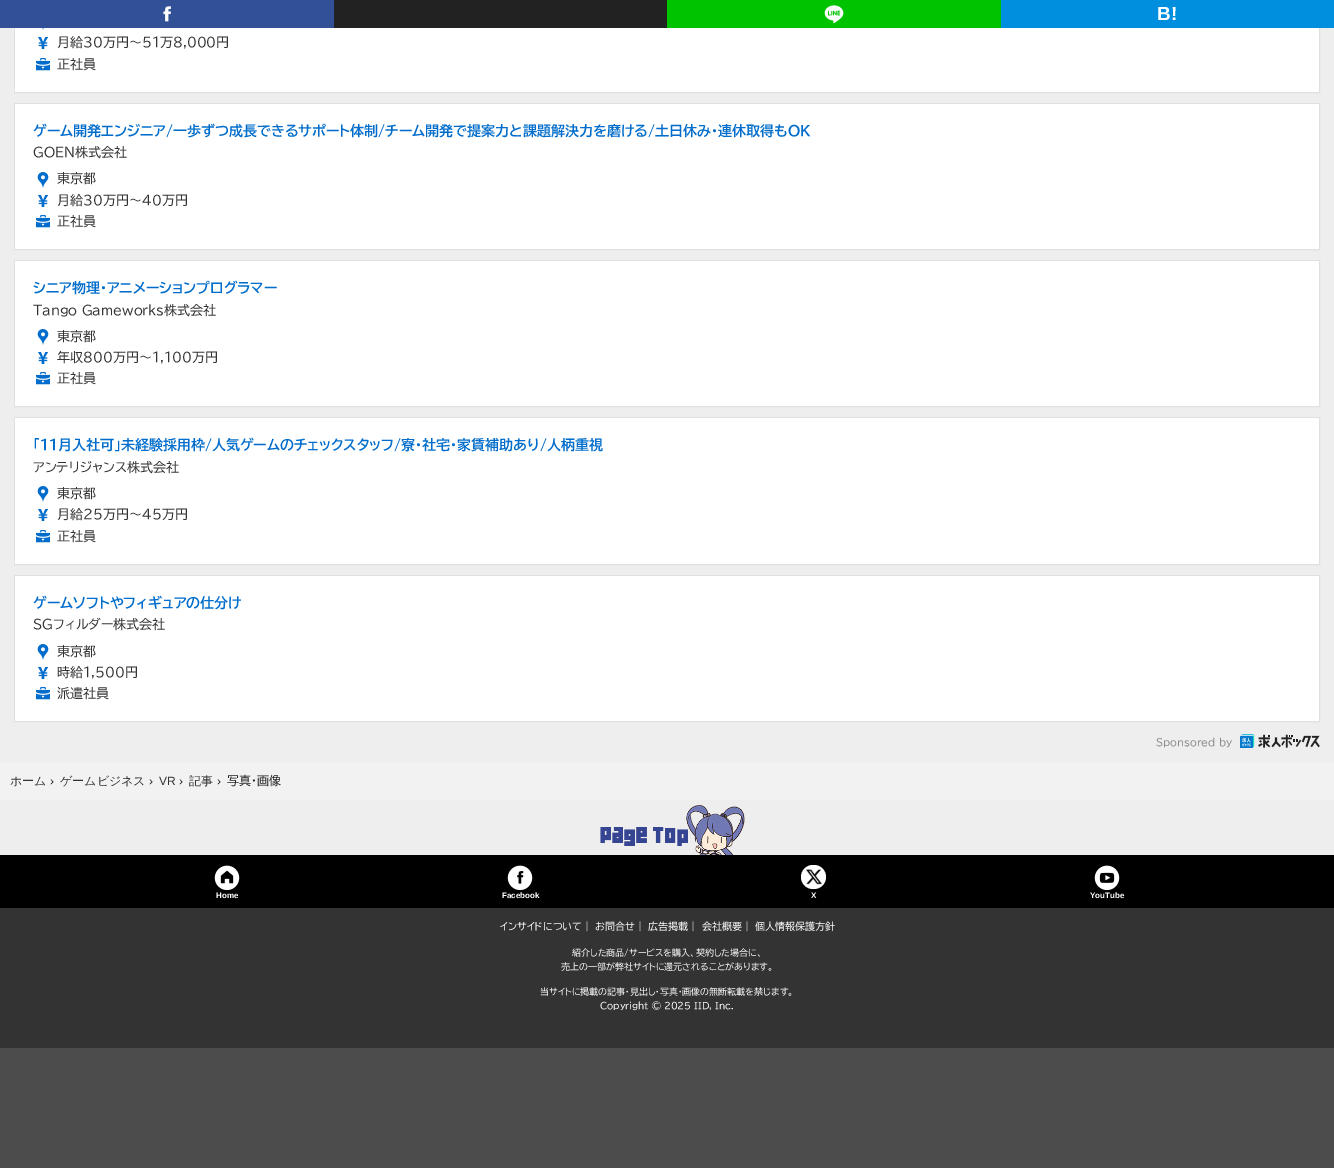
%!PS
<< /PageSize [1334 1168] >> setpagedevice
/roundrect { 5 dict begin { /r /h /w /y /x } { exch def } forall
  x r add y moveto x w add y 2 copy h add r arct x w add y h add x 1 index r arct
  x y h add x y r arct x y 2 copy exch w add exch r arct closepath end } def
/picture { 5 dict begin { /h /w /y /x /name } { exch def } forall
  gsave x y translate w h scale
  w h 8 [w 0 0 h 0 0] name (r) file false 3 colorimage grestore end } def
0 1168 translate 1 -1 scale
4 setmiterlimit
0.933 setgray
0 0 1334 1168 rectfill
0.878 setgray
14.5 -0.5 1305 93 rectstroke
0.192 0.314 0.588 setrgbcolor
0 0 334 28 rectfill
(img1.rgb) 163 6 8 16 picture
0.133 setgray
334 0 333 28 rectfill
0 0.765 0 setrgbcolor
667 0 334 28 rectfill
(img2.rgb) 824 5 20 19 picture
0 0.561 0.871 setrgbcolor
1001 0 333 28 rectfill
/LiberationSans-Bold [19 0 0 -19 0 0] selectfont
1 setgray
1157 20 moveto (B!) show
15 28 1304 64 rectfill
(img3.rgb) 42 28 2 2 picture
(img4.rgb) 38 37 11 12 picture
/BIZUDPGothic-Regular [13 0 0 -13 0 0] selectfont
0.2 setgray
57 47 moveto (月給30万円～51万8,000円) show
(img5.rgb) 36 58 14 13 picture
57 69 moveto (正社員) show
0.878 setgray
14.5 103.5 1305 146 rectstroke
1 setgray
15 104 1304 145 rectfill
/BIZUDPGothic-Bold [14 0 0 -14 0 0] selectfont
0 0.424 0.8 setrgbcolor
33 136 moveto (ゲーム開発エンジニア/一歩ずつ成長できるサポート体制/チーム開発で提案力と課題解決力を磨ける/土日休み・連休取得もOK) show
/BIZUDPGothic-Regular [13 0 0 -13 0 0] selectfont
0.2 setgray
33 157 moveto (GOEN株式会社) show
(img6.rgb) 37 172 12 16 picture
57 183 moveto (東京都) show
(img4.rgb) 38 195 11 12 picture
57 205 moveto (月給30万円～40万円) show
(img5.rgb) 36 215 14 13 picture
57 226 moveto (正社員) show
0.878 setgray
14.5 260.5 1305 146 rectstroke
1 setgray
15 261 1304 145 rectfill
/BIZUDPGothic-Bold [14 0 0 -14 0 0] selectfont
0 0.424 0.8 setrgbcolor
33 293 moveto (シニア物理・アニメーションプログラマー) show
/BIZUDPGothic-Regular [13 0 0 -13 0 0] selectfont
0.2 setgray
33 315 moveto (Tango Gameworks株式会社) show
(img6.rgb) 37 329 12 16 picture
57 341 moveto (東京都) show
(img4.rgb) 38 352 11 12 picture
57 362 moveto (年収800万円～1,100万円) show
(img5.rgb) 36 372 14 13 picture
57 383 moveto (正社員) show
0.878 setgray
14.5 417.5 1305 147 rectstroke
1 setgray
15 418 1304 146 rectfill
/BIZUDPGothic-Bold [14 0 0 -14 0 0] selectfont
0 0.424 0.8 setrgbcolor
33 450 moveto (「11月入社可」未経験採用枠/人気ゲームのチェックスタッフ/寮・社宅・家賃補助あり/人柄重視) show
/BIZUDPGothic-Regular [13 0 0 -13 0 0] selectfont
0.2 setgray
33 472 moveto (アンテリジャンス株式会社) show
(img6.rgb) 37 486 12 16 picture
57 498 moveto (東京都) show
(img4.rgb) 38 509 11 12 picture
57 519 moveto (月給25万円～45万円) show
(img5.rgb) 36 530 14 13 picture
57 541 moveto (正社員) show
0.878 setgray
14.5 575.5 1305 146 rectstroke
1 setgray
15 576 1304 145 rectfill
/BIZUDPGothic-Bold [14 0 0 -14 0 0] selectfont
0 0.424 0.8 setrgbcolor
33 608 moveto (ゲームソフトやフィギュアの仕分け) show
/BIZUDPGothic-Regular [13 0 0 -13 0 0] selectfont
0.2 setgray
33 629 moveto (SGフィルダー株式会社) show
(img6.rgb) 37 644 12 16 picture
57 656 moveto (東京都) show
(img4.rgb) 38 667 11 12 picture
57 677 moveto (時給1,500円) show
(img5.rgb) 36 687 14 13 picture
57 698 moveto (派遣社員) show
/BIZUDPGothic-Regular [10 0 0 -10 0 0] selectfont
0.533 setgray
1156 746 moveto (Sponsored by) show
(img7.rgb) 1240 734 80 14 picture
0.949 setgray
0 763 1334 37 rectfill
/WenQuanYiZenHei-Medium [12 0 0 -12 0 0] selectfont
0.2 setgray
10 785 moveto (ホーム) show
/LiberationSans-Regular [12 0 0 -12 0 0] selectfont
0.133 setgray
50 785 moveto (›) show
/WenQuanYiZenHei-Medium [12 0 0 -12 0 0] selectfont
0.2 setgray
60 785 moveto (ゲームビジネス) show
/LiberationSans-Regular [12 0 0 -12 0 0] selectfont
0.133 setgray
149 785 moveto (›) show
0.2 setgray
159 785 moveto (VR) show
0.133 setgray
179 785 moveto (›) show
/WenQuanYiZenHei-Medium [12 0 0 -12 0 0] selectfont
0.2 setgray
189 785 moveto (記事) show
/LiberationSans-Regular [12 0 0 -12 0 0] selectfont
0.133 setgray
217 785 moveto (›) show
/BIZUDPGothic-Regular [12 0 0 -12 0 0] selectfont
227 785 moveto (写真・画像) show
(img8.rgb) 600 805 145 50 picture
0 setgray
0 855 1334 53 rectfill
(img9.rgb) 214 865 26 26 picture
/LiberationSans-Bold [8 0 0 -8 0 0] selectfont
1 setgray
216 898 moveto (Home) show
(img10.rgb) 507 865 26 26 picture
502 898 moveto (Facebook) show
801 865 25 24 12 roundrect fill
(img11.rgb) 806 869 16 16 picture
811 898 moveto (X) show
(img12.rgb) 1094 865 26 26 picture
1090 898 moveto (YouTube) show
0.2 setgray
0 908 1334 140 rectfill
/BIZUDPGothic-Regular [10 0 0 -10 0 0] selectfont
1 setgray
500 930 moveto (インサイドについて｜ お問合せ｜ 広告掲載｜ 会社概要｜ 個人情報保護方針) show
/BIZUDPGothic-Regular [9 0 0 -9 0 0] selectfont
572 956 moveto (紹介した商品/サービスを購入、契約した場合に、) show
561 970 moveto (売上の一部が弊社サイトに還元されることがあります。) show
540 995 moveto (当サイトに掲載の記事・見出し・写真・画像の無断転載を禁じます。) show
600 1009 moveto (Copyright © 2025 IID, Inc.) show
0.298 setgray
0 1048 1334 120 rectfill
showpage
